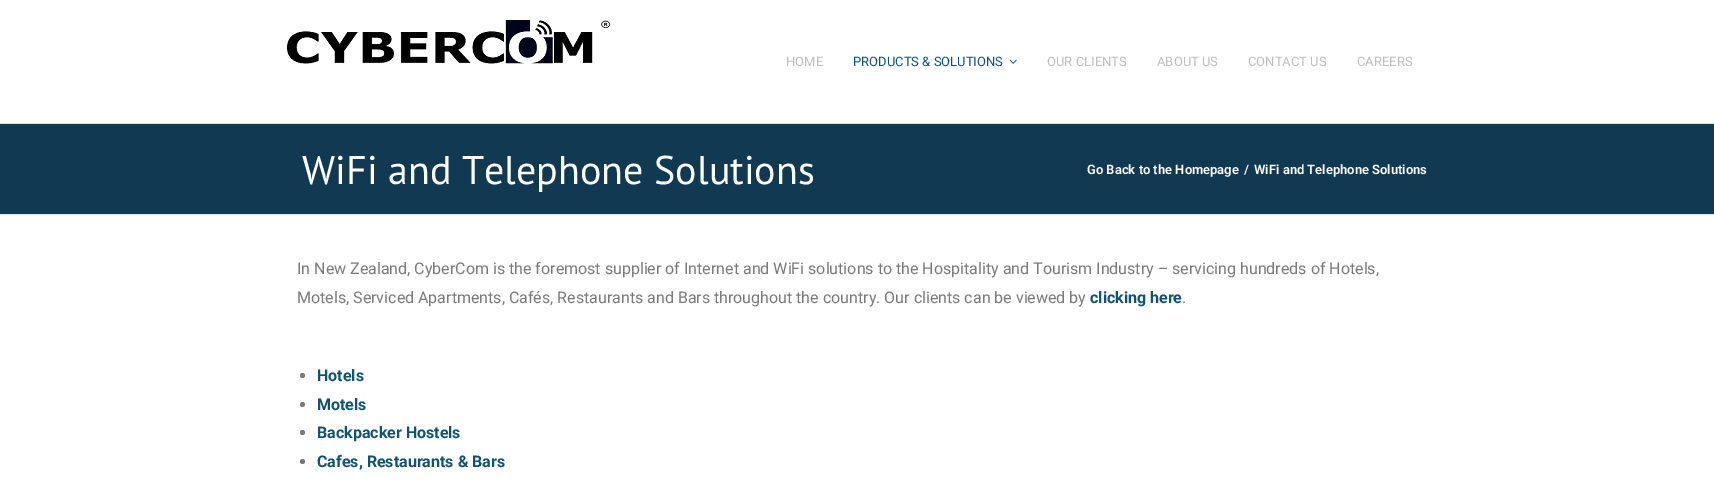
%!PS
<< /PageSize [1714 490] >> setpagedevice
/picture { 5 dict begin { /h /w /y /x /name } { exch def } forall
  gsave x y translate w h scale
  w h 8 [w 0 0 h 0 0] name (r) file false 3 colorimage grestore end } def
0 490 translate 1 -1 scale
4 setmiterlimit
1 setgray
0 0 1714 490 rectfill
0.882 setgray
0 123 1714 1 rectfill
(img1.rgb) 287 20 323 44 picture
/Roboto-Regular [13 0 0 -13 0 0] selectfont
0.745 setgray
786 66 moveto (HOME) show
0.067 0.318 0.447 setrgbcolor
853 66 moveto (PRODUCTS & SOLUTIONS) show
(img2.rgb) 1009 59 8 5 picture
0.745 setgray
1047 66 moveto (OUR CLIENTS) show
1157 66 moveto (ABOUT US) show
1248 66 moveto (CONTACT US) show
1357 66 moveto (CAREERS) show
0.067 0.227 0.322 setrgbcolor
0 124 1714 90 rectfill
0.898 setgray
0 214 1714 1 rectfill
/PTSans-Regular [40 0 0 -40 0 0] selectfont
1 setgray
302 184 moveto (WiFi and Telephone Solutions) show
/Roboto-SemiBold [13 0 0 -13 0 0] selectfont
1087 174 moveto (Go Back to the Homepage) show
1244 174 moveto (/) show
1254 174 moveto (WiFi and Telephone Solutions) show
/Roboto-Regular [16 0 0 -16 0 0] selectfont
0.478 setgray
297 274 moveto (In New Zealand, CyberCom is the foremost supplier of Internet and WiFi solutions to the Hospitality and Tourism Industry – servicing hundreds of Hotels,) show
297 303 moveto (Motels, Serviced Apartments, Cafés, Restaurants and Bars throughout the country. Our clients can be viewed by) show
/Roboto-Bold [16 0 0 -16 0 0] selectfont
0.067 0.318 0.447 setrgbcolor
1090 303 moveto (clicking here) show
/Roboto-Regular [16 0 0 -16 0 0] selectfont
0.478 setgray
1182 303 moveto (.) show
newpath 302.5 375.5 2.5 0 360 arc closepath fill
/Roboto-Bold [16 0 0 -16 0 0] selectfont
0.067 0.318 0.447 setrgbcolor
317 381 moveto (Hotels) show
0.478 setgray
newpath 302.5 404.5 2.5 0 360 arc closepath fill
0.067 0.318 0.447 setrgbcolor
317 410 moveto (Motels) show
0.478 setgray
newpath 302.5 432.5 2.5 0 360 arc closepath fill
0.067 0.318 0.447 setrgbcolor
317 438 moveto (Backpacker Hostels) show
0.478 setgray
newpath 302.5 461.5 2.5 0 360 arc closepath fill
0.067 0.318 0.447 setrgbcolor
317 467 moveto (Cafes, Restaurants & Bars) show
showpage
